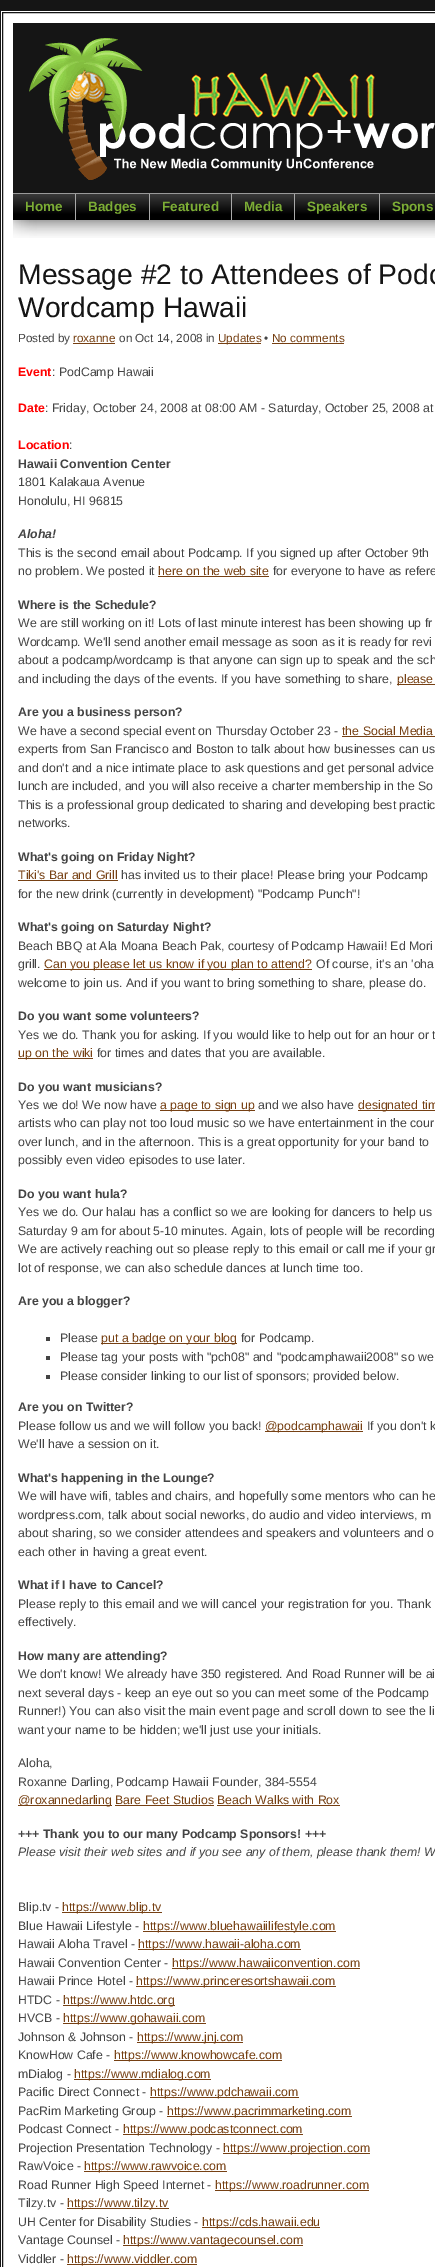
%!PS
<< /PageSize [435 2267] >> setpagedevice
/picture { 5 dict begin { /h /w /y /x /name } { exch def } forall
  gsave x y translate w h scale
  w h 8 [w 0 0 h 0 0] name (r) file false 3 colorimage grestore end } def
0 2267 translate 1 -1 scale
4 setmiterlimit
0.082 setgray
0 0 435 2267 rectfill
1 setgray
1 11 434 2256 rectfill
0.082 setgray
2.5 12.5 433 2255 rectstroke
13 23 422 170 rectfill
(img1.rgb) 29 38 406 142 picture
(img2.rgb) 13 194 422 26 picture
0.6 setgray
13 193 422 1 rectfill
0.663 setgray
75 194 1 26 rectfill
/LiberationSans-Bold [13.5 0 0 -13.5 0 0] selectfont
0.486 0.678 0.208 setrgbcolor
25 211 moveto (Home) show
0.663 setgray
149 194 1 26 rectfill
0.486 0.678 0.208 setrgbcolor
88 211 moveto (Badges) show
0.663 setgray
231 194 1 26 rectfill
0.486 0.678 0.208 setrgbcolor
162 211 moveto (Featured) show
0.663 setgray
294 194 1 26 rectfill
0.486 0.678 0.208 setrgbcolor
244 211 moveto (Media) show
0.663 setgray
379 194 1 26 rectfill
0.486 0.678 0.208 setrgbcolor
307 211 moveto (Speakers) show
392 211 moveto (Spons) show
(img3.rgb) 13 220 422 18 picture
/LiberationSans-Regular [28.3 0 0 -28.3 0 0] selectfont
0.082 setgray
18 284 moveto (Message #2 to Attendees of Podc) show
18 317 moveto (Wordcamp Hawaii) show
/LiberationSans-Regular [11.75 0 0 -11.75 0 0] selectfont
0.267 setgray
18 342 moveto (Posted by) show
0.463 0.251 0.075 setrgbcolor
73 342 moveto (roxanne) show
73 343 42 1 rectfill
0.267 setgray
119 342 moveto (on Oct 14, 2008 in) show
0.463 0.251 0.075 setrgbcolor
218 343 43 1 rectfill
218 342 moveto (Updates) show
0.267 setgray
264 342 moveto (•) show
0.463 0.251 0.075 setrgbcolor
272 342 moveto (No comments) show
272 343 72 1 rectfill
/LiberationSans-Bold [12.3 0 0 -12.3 0 0] selectfont
1 0 0 setrgbcolor
18 376 moveto (Event) show
/LiberationSans-Regular [12.3 0 0 -12.3 0 0] selectfont
0.267 setgray
52 376 moveto (: PodCamp Hawaii) show
/LiberationSans-Bold [12.3 0 0 -12.3 0 0] selectfont
1 0 0 setrgbcolor
18 412 moveto (Date) show
/LiberationSans-Regular [12.3 0 0 -12.3 0 0] selectfont
0.267 setgray
45 412 moveto (: Friday, October 24, 2008 at 08:00 AM - Saturday, October 25, 2008 at) show
/LiberationSans-Bold [12.3 0 0 -12.3 0 0] selectfont
1 0 0 setrgbcolor
18 449 moveto (Location) show
/LiberationSans-Regular [12.3 0 0 -12.3 0 0] selectfont
0.267 setgray
69 449 moveto (:) show
/LiberationSans-Bold [12.3 0 0 -12.3 0 0] selectfont
18 468 moveto (Hawaii Convention Center) show
/LiberationSans-Regular [12.3 0 0 -12.3 0 0] selectfont
18 486 moveto (1801 Kalakaua Avenue) show
18 505 moveto (Honolulu, HI 96815) show
/LiberationSans-BoldItalic [12.3 0 0 -12.3 0 0] selectfont
18 538 moveto (Aloha!) show
/LiberationSans-Regular [12.3 0 0 -12.3 0 0] selectfont
18 557 moveto (This is the second email about Podcamp. If you signed up after October 9th) show
18 575 moveto (no problem. We posted it) show
0.463 0.251 0.075 setrgbcolor
158 575 moveto (here on the web site) show
158 576 111 1 rectfill
0.267 setgray
273 575 moveto (for everyone to have as refere) show
/LiberationSans-Bold [12.3 0 0 -12.3 0 0] selectfont
18 609 moveto (Where is the Schedule?) show
/LiberationSans-Regular [12.3 0 0 -12.3 0 0] selectfont
18 627 moveto (We are still working on it! Lots of last minute interest has been showing up fr) show
18 646 moveto (Wordcamp. We'll send another email message as soon as it is ready for revi) show
18 664 moveto (about a podcamp/wordcamp is that anyone can sign up to speak and the sch) show
18 683 moveto (and including the days of the events. If you have something to share,) show
0.463 0.251 0.075 setrgbcolor
397 684 38 1 rectfill
397 683 moveto (please) show
/LiberationSans-Bold [12.3 0 0 -12.3 0 0] selectfont
0.267 setgray
18 716 moveto (Are you a business person?) show
/LiberationSans-Regular [12.3 0 0 -12.3 0 0] selectfont
18 735 moveto (We have a second special event on Thursday October 23 -) show
0.463 0.251 0.075 setrgbcolor
342 735 moveto (the Social Media) show
342 736 93 1 rectfill
0.267 setgray
18 753 moveto (experts from San Francisco and Boston to talk about how businesses can us) show
18 772 moveto (and don't and a nice intimate place to ask questions and get personal advice) show
18 790 moveto (lunch are included, and you will also receive a charter membership in the So) show
18 809 moveto (This is a professional group dedicated to sharing and developing best practic) show
18 827 moveto (networks.) show
/LiberationSans-Bold [12.3 0 0 -12.3 0 0] selectfont
18 861 moveto (What's going on Friday Night?) show
/LiberationSans-Regular [12.3 0 0 -12.3 0 0] selectfont
0.463 0.251 0.075 setrgbcolor
18 879 moveto (Tiki's Bar and Grill) show
18 880 100 1 rectfill
0.267 setgray
121 879 moveto (has invited us to their place! Please bring your Podcamp) show
18 898 moveto (for the new drink \(currently in development\) "Podcamp Punch"!) show
/LiberationSans-Bold [12.3 0 0 -12.3 0 0] selectfont
18 931 moveto (What's going on Saturday Night?) show
/LiberationSans-Regular [12.3 0 0 -12.3 0 0] selectfont
18 950 moveto (Beach BBQ at Ala Moana Beach Pak, courtesy of Podcamp Hawaii! Ed Mori) show
18 968 moveto (grill.) show
0.463 0.251 0.075 setrgbcolor
44 969 268 1 rectfill
44 968 moveto (Can you please let us know if you plan to attend?) show
0.267 setgray
316 968 moveto (Of course, it's an 'oha) show
18 987 moveto (welcome to join us. And if you want to bring something to share, please do.) show
/LiberationSans-Bold [12.3 0 0 -12.3 0 0] selectfont
18 1020 moveto (Do you want some volunteers?) show
/LiberationSans-Regular [12.3 0 0 -12.3 0 0] selectfont
18 1039 moveto (Yes we do. Thank you for asking. If you would like to help out for an hour or t) show
0.463 0.251 0.075 setrgbcolor
18 1058 75 1 rectfill
18 1057 moveto (up on the wiki) show
0.267 setgray
97 1057 moveto (for times and dates that you are available.) show
/LiberationSans-Bold [12.3 0 0 -12.3 0 0] selectfont
18 1091 moveto (Do you want musicians?) show
/LiberationSans-Regular [12.3 0 0 -12.3 0 0] selectfont
18 1109 moveto (Yes we do! We now have) show
0.463 0.251 0.075 setrgbcolor
160 1110 95 1 rectfill
160 1109 moveto (a page to sign up) show
0.267 setgray
258 1109 moveto (and we also have) show
0.463 0.251 0.075 setrgbcolor
358 1110 77 1 rectfill
358 1109 moveto (designated tim) show
0.267 setgray
18 1127 moveto (artists who can play not too loud music so we have entertainment in the cour) show
18 1146 moveto (over lunch, and in the afternoon. This is a great opportunity for your band to) show
18 1164 moveto (possibly even video episodes to use later.) show
/LiberationSans-Bold [12.3 0 0 -12.3 0 0] selectfont
18 1198 moveto (Do you want hula?) show
/LiberationSans-Regular [12.3 0 0 -12.3 0 0] selectfont
18 1216 moveto (Yes we do. Our halau has a conflict so we are looking for dancers to help us) show
18 1235 moveto (Saturday 9 am for about 5-10 minutes. Again, lots of people will be recording) show
18 1253 moveto (We are actively reaching out so please reply to this email or call me if your gr) show
18 1272 moveto (lot of response, we can also schedule dances at lunch time too.) show
/LiberationSans-Bold [12.3 0 0 -12.3 0 0] selectfont
18 1305 moveto (Are you a blogger?) show
46 1337 4 4 rectfill
/LiberationSans-Regular [12.3 0 0 -12.3 0 0] selectfont
60 1342 moveto (Please) show
0.463 0.251 0.075 setrgbcolor
101 1343 136 1 rectfill
101 1342 moveto (put a badge on your blog) show
0.267 setgray
241 1342 moveto (for Podcamp.) show
46 1356 4 4 rectfill
60 1361 moveto (Please tag your posts with "pch08" and "podcamphawaii2008" so we) show
46 1375 4 4 rectfill
60 1380 moveto (Please consider linking to our list of sponsors; provided below.) show
/LiberationSans-Bold [12.3 0 0 -12.3 0 0] selectfont
18 1411 moveto (Are you on Twitter?) show
/LiberationSans-Regular [12.3 0 0 -12.3 0 0] selectfont
18 1430 moveto (Please follow us and we will follow you back!) show
0.463 0.251 0.075 setrgbcolor
265 1431 98 1 rectfill
265 1430 moveto (@podcamphawaii) show
0.267 setgray
367 1430 moveto (If you don't k) show
18 1448 moveto (We'll have a session on it.) show
/LiberationSans-Bold [12.3 0 0 -12.3 0 0] selectfont
18 1482 moveto (What's happening in the Lounge?) show
/LiberationSans-Regular [12.3 0 0 -12.3 0 0] selectfont
18 1500 moveto (We will have wifi, tables and chairs, and hopefully some mentors who can he) show
18 1519 moveto (wordpress.com, talk about social neworks, do audio and video interviews, m) show
18 1537 moveto (about sharing, so we consider attendees and speakers and volunteers and o) show
18 1556 moveto (each other in having a great event.) show
/LiberationSans-Bold [12.3 0 0 -12.3 0 0] selectfont
18 1589 moveto (What if I have to Cancel?) show
/LiberationSans-Regular [12.3 0 0 -12.3 0 0] selectfont
18 1608 moveto (Please reply to this email and we will cancel your registration for you. Thank) show
18 1626 moveto (effectively.) show
/LiberationSans-Bold [12.3 0 0 -12.3 0 0] selectfont
18 1660 moveto (How many are attending?) show
/LiberationSans-Regular [12.3 0 0 -12.3 0 0] selectfont
18 1678 moveto (We don't know! We already have 350 registered. And Road Runner will be ai) show
18 1697 moveto (next several days - keep an eye out so you can meet some of the Podcamp) show
18 1715 moveto (Runner!\) You can also visit the main event page and scroll down to see the li) show
18 1734 moveto (want your name to be hidden; we'll just use your initials.) show
18 1767 moveto (Aloha,) show
18 1786 moveto (Roxanne Darling, Podcamp Hawaii Founder, 384-5554) show
0.463 0.251 0.075 setrgbcolor
18 1805 94 1 rectfill
18 1804 moveto (@roxannedarling Bare Feet Studios Beach Walks with Rox) show
115 1805 99 1 rectfill
217 1805 123 1 rectfill
/LiberationSans-Bold [12.3 0 0 -12.3 0 0] selectfont
0.267 setgray
18 1838 moveto (+++ Thank you to our many Podcamp Sponsors! +++) show
/LiberationSans-Italic [12.3 0 0 -12.3 0 0] selectfont
18 1856 moveto (Please visit their web sites and if you see any of them, please thank them! W) show
/LiberationSans-Regular [12.3 0 0 -12.3 0 0] selectfont
18 1911 moveto (Blip.tv -) show
0.463 0.251 0.075 setrgbcolor
62 1912 100 1 rectfill
62 1911 moveto (https://www.blip.tv) show
0.267 setgray
18 1930 moveto (Blue Hawaii Lifestyle -) show
0.463 0.251 0.075 setrgbcolor
143 1931 193 1 rectfill
143 1930 moveto (https://www.bluehawaiilifestyle.com) show
0.267 setgray
18 1948 moveto (Hawaii Aloha Travel -) show
0.463 0.251 0.075 setrgbcolor
138 1949 163 1 rectfill
138 1948 moveto (https://www.hawaii-aloha.com) show
0.267 setgray
18 1967 moveto (Hawaii Convention Center -) show
0.463 0.251 0.075 setrgbcolor
172 1968 188 1 rectfill
172 1967 moveto (https://www.hawaiiconvention.com) show
0.267 setgray
18 1985 moveto (Hawaii Prince Hotel -) show
0.463 0.251 0.075 setrgbcolor
136 1986 200 1 rectfill
136 1985 moveto (https://www.princeresortshawaii.com) show
0.267 setgray
18 2004 moveto (HTDC -) show
0.463 0.251 0.075 setrgbcolor
63 2005 112 1 rectfill
63 2004 moveto (https://www.htdc.org) show
0.267 setgray
18 2022 moveto (HVCB -) show
0.463 0.251 0.075 setrgbcolor
63 2023 143 1 rectfill
63 2022 moveto (https://www.gohawaii.com) show
0.267 setgray
18 2041 moveto (Johnson & Johnson -) show
0.463 0.251 0.075 setrgbcolor
137 2042 106 1 rectfill
137 2041 moveto (https://www.jnj.com) show
0.267 setgray
18 2059 moveto (KnowHow Cafe -) show
0.463 0.251 0.075 setrgbcolor
114 2060 168 1 rectfill
114 2059 moveto (https://www.knowhowcafe.com) show
0.267 setgray
18 2078 moveto (mDialog -) show
0.463 0.251 0.075 setrgbcolor
74 2079 137 1 rectfill
74 2078 moveto (https://www.mdialog.com) show
0.267 setgray
18 2096 moveto (Pacific Direct Connect -) show
0.463 0.251 0.075 setrgbcolor
150 2097 149 1 rectfill
150 2096 moveto (https://www.pdchawaii.com) show
0.267 setgray
18 2115 moveto (PacRim Marketing Group -) show
0.463 0.251 0.075 setrgbcolor
167 2116 185 1 rectfill
167 2115 moveto (https://www.pacrimmarketing.com) show
0.267 setgray
18 2133 moveto (Podcast Connect -) show
0.463 0.251 0.075 setrgbcolor
123 2134 180 1 rectfill
123 2133 moveto (https://www.podcastconnect.com) show
0.267 setgray
18 2152 moveto (Projection Presentation Technology -) show
0.463 0.251 0.075 setrgbcolor
223 2153 147 1 rectfill
223 2152 moveto (https://www.projection.com) show
0.267 setgray
18 2170 moveto (RawVoice -) show
0.463 0.251 0.075 setrgbcolor
84 2171 143 1 rectfill
84 2170 moveto (https://www.rawvoice.com) show
0.267 setgray
18 2189 moveto (Road Runner High Speed Internet -) show
0.463 0.251 0.075 setrgbcolor
215 2190 154 1 rectfill
215 2189 moveto (https://www.roadrunner.com) show
0.267 setgray
18 2207 moveto (Tilzy.tv -) show
0.463 0.251 0.075 setrgbcolor
67 2208 102 1 rectfill
67 2207 moveto (https://www.tilzy.tv) show
0.267 setgray
18 2226 moveto (UH Center for Disability Studies -) show
0.463 0.251 0.075 setrgbcolor
202 2227 118 1 rectfill
202 2226 moveto (https://cds.hawaii.edu) show
0.267 setgray
18 2244 moveto (Vantage Counsel -) show
0.463 0.251 0.075 setrgbcolor
123 2245 180 1 rectfill
123 2244 moveto (https://www.vantagecounsel.com) show
0.267 setgray
18 2263 moveto (Viddler -) show
0.463 0.251 0.075 setrgbcolor
67 2264 130 1 rectfill
67 2263 moveto (https://www.viddler.com) show
showpage
